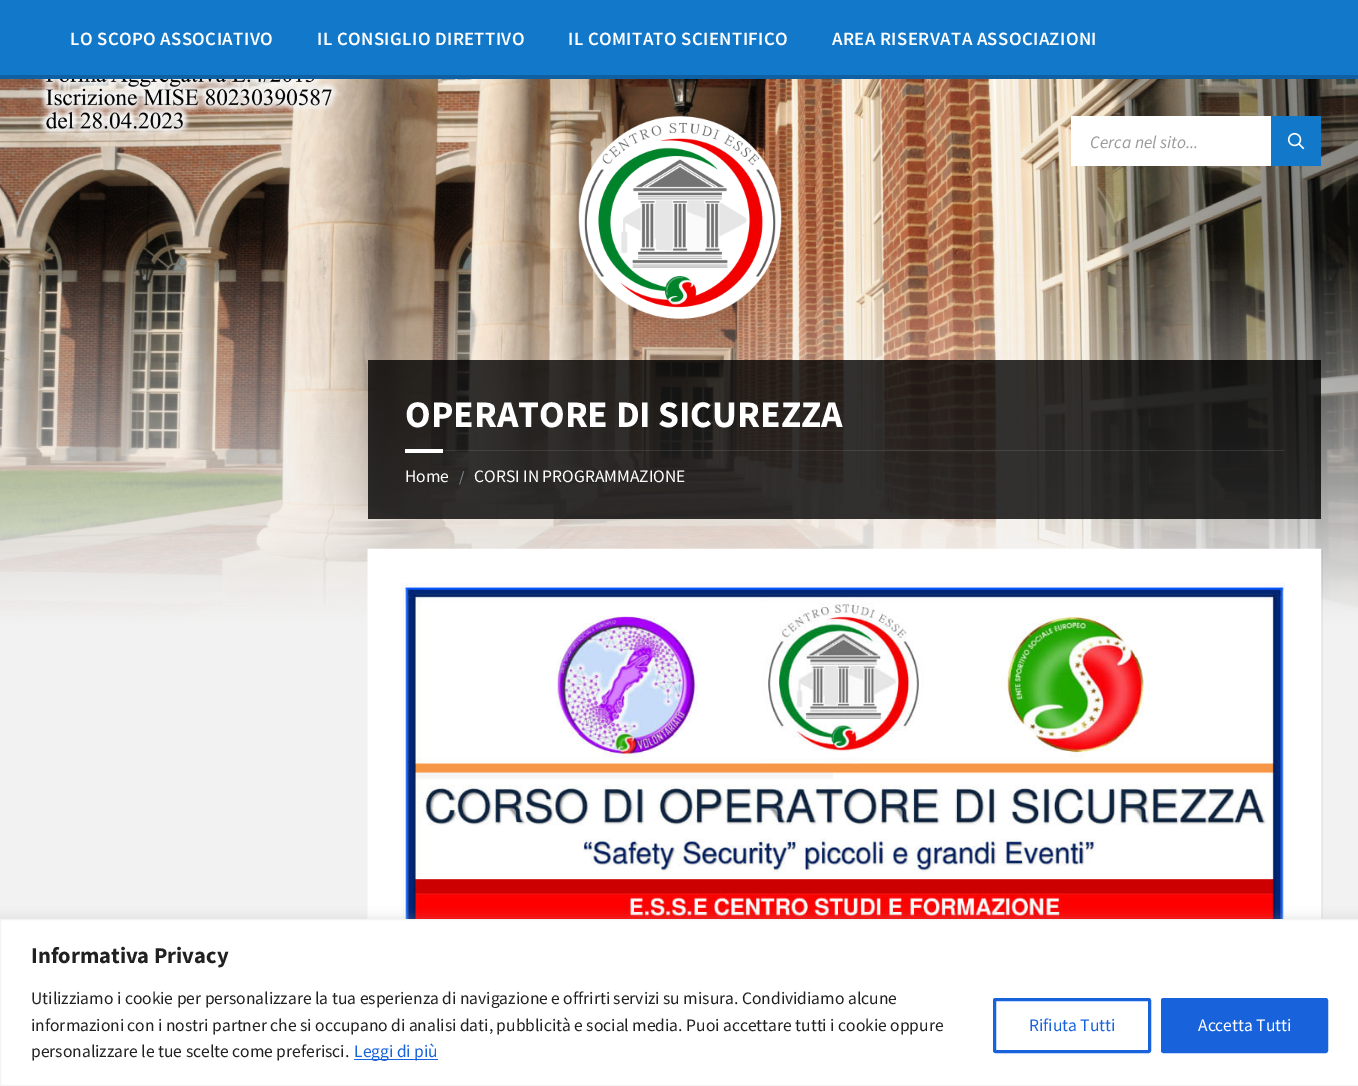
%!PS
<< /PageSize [1358 1086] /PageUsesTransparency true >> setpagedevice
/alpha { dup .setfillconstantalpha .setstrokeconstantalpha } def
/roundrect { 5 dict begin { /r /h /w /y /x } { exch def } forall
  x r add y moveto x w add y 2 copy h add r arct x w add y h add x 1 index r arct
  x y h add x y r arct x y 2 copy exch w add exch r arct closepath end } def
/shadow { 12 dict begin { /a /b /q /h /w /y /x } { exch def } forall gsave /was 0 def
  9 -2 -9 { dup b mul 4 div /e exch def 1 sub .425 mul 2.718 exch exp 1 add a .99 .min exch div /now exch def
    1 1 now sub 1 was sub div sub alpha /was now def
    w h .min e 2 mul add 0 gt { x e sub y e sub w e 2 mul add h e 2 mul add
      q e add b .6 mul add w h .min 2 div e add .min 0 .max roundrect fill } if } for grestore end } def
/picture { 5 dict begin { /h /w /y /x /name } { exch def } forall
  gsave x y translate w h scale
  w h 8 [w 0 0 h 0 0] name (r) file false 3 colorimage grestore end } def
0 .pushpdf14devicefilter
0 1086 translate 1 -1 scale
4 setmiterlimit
0.949 setgray
0 0 1358 1086 rectfill
0.067 0.471 0.792 setrgbcolor
0 0 1358 75 rectfill
0.055 0.376 0.635 setrgbcolor
0 75 1358 4 rectfill
/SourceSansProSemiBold-SemiBold [18.75 0 0 -18.75 0 0] selectfont
1 setgray
70 45 moveto 0.4 0 (LO SCOPO ASSOCIATIVO) ashow
317 45 moveto 0.4 0 (IL CONSIGLIO DIRETTIVO) ashow
568 45 moveto 0.4 0 (IL COMITATO SCIENTIFICO) ashow
832 45 moveto 0.4 0 (AREA RISERVATA ASSOCIAZIONI) ashow
(img3.rgb) 0 79 1358 546 picture
(img1.rgb) 578 116 204 203 picture
1071 116 200 50 rectfill
/SourceSansPro-Italic [17.5 0 0 -17.5 0 0] selectfont
0.604 setgray
1090 148 moveto (Cerca nel sito...) show
0.067 0.471 0.792 setrgbcolor
1271 116 50 50 rectfill
(img2.rgb) 1287 132 18 18 picture
0.8 alpha
0 setgray
368 360 953 159 rectfill
/SourceSansPro-Bold [37.5 0 0 -37.5 0 0] selectfont
1 alpha
1 setgray
405 427 moveto (OPERATORE DI SICUREZZA) show
0.1 alpha
443 450 841 1 rectfill
1 alpha
405 449 38 4 rectfill
/SourceSansPro-Regular [17.5 0 0 -17.5 0 0] selectfont
405 482 moveto (Home) show
/SourceSansPro-Regular [15 0 0 -15 0 0] selectfont
0.541 0.58 0.608 setrgbcolor
459 482 moveto (/) show
/SourceSansPro-Regular [17.5 0 0 -17.5 0 0] selectfont
1 setgray
474 482 moveto (CORSI IN PROGRAMMAZIONE) show
0.05 alpha
0 setgray
newpath 369 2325 moveto 369 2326 lineto 1323 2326 lineto 1323 550 lineto 1321 550 lineto 1321 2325 lineto closepath fill
1 alpha
(img4.rgb) 367 548 955 371 picture
0.675 0.671 0.671 setrgbcolor
0 918 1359 167 0 6 0.3 shadow
1 setgray
newpath 0.5 919.5 moveto 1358.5 919.5 lineto 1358.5 1085.5 lineto 0.5 1085.5 lineto closepath gsave fill grestore
0.957 setgray
stroke
/SourceSansPro-Bold [22.5 0 0 -22.5 0 0] selectfont
0.129 setgray
31 963 moveto (Informativa Privacy) show
/SourceSansPro-Regular [17.5 0 0 -17.5 0 0] selectfont
31 1004 moveto (Utilizziamo i cookie per personalizzare la tua esperienza di navigazione e offrirti servizi su misura. Condividiamo alcune) show
31 1031 moveto (informazioni con i nostri partner che si occupano di analisi dati, pubblicità e social media. Puoi accettare tutti i cookie oppure) show
31 1057 moveto (personalizzare le tue scelte come preferisci.) show
0.094 0.388 0.863 setrgbcolor
354 1059 84 1 rectfill
354 1057 moveto (Leggi di più) show
3 setlinewidth
994.5 999.5 155 52 1 roundrect stroke
1029 1031 moveto (Rifiuta Tutti) show
1162.5 999.5 164 52 1 roundrect gsave fill grestore
stroke
1 setgray
1198 1031 moveto (Accetta Tutti) show
.poppdf14devicefilter showpage
